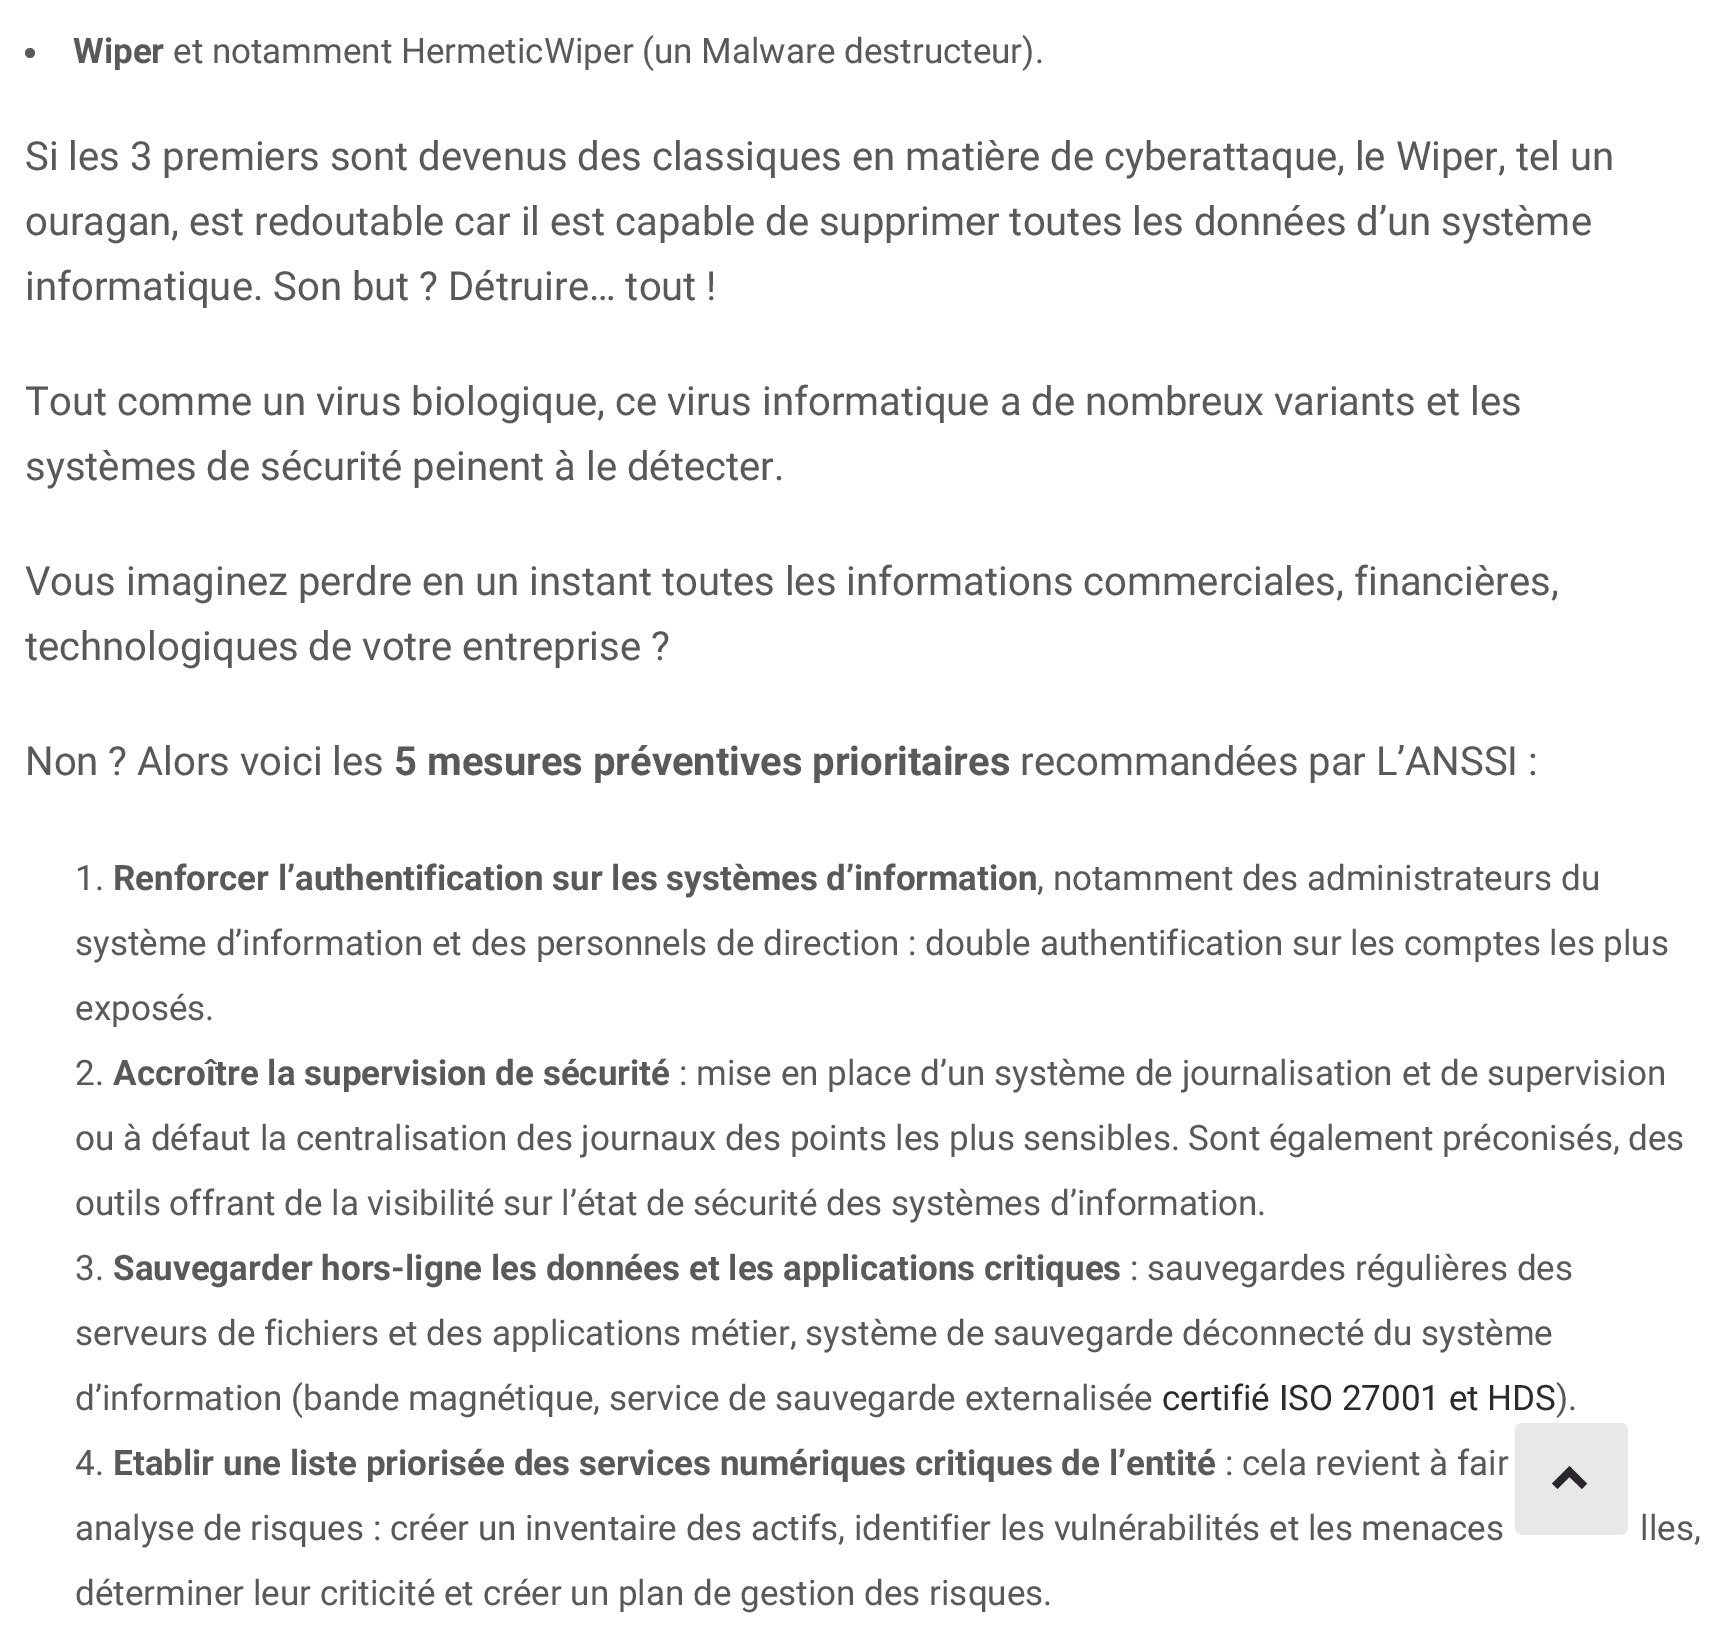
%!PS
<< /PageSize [1727 1635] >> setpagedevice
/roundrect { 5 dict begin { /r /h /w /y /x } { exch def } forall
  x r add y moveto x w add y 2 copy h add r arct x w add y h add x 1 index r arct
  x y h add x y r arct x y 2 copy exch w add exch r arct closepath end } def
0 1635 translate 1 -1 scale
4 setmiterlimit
1 setgray
0 0 1727 1635 rectfill
0.349 setgray
newpath 30 53 5 0 360 arc closepath fill
/Roboto-Bold [35 0 0 -35 0 0] selectfont
73 63 moveto (Wiper) show
/Roboto-Regular [35 0 0 -35 0 0] selectfont
173 63 moveto (et notamment HermeticWiper \(un Malware destructeur\).) show
/Roboto-Regular [40 0 0 -40 0 0] selectfont
25 170 moveto (Si les 3 premiers sont devenus des classiques en matière de cyberattaque, le Wiper, tel un) show
25 235 moveto (ouragan, est redoutable car il est capable de supprimer toutes les données d’un système) show
25 300 moveto (informatique. Son but ? Détruire… tout !) show
25 415 moveto (Tout comme un virus biologique, ce virus informatique a de nombreux variants et les) show
25 480 moveto (systèmes de sécurité peinent à le détecter.) show
25 595 moveto (Vous imaginez perdre en un instant toutes les informations commerciales, financières,) show
25 660 moveto (technologiques de votre entreprise ?) show
25 775 moveto (Non ? Alors voici les) show
/Roboto-Bold [40 0 0 -40 0 0] selectfont
394 775 moveto (5 mesures préventives prioritaires) show
/Roboto-Regular [40 0 0 -40 0 0] selectfont
1020 775 moveto (recommandées par L’ANSSI :) show
/Roboto-Regular [35 0 0 -35 0 0] selectfont
75 890 moveto (1.) show
/Roboto-Bold [35 0 0 -35 0 0] selectfont
113 890 moveto (Renforcer l’authentification sur les systèmes d’information) show
/Roboto-Regular [35 0 0 -35 0 0] selectfont
1037 890 moveto (, notamment des administrateurs du) show
75 955 moveto (système d’information et des personnels de direction : double authentification sur les comptes les plus) show
75 1020 moveto (exposés.) show
75 1085 moveto (2.) show
/Roboto-Bold [35 0 0 -35 0 0] selectfont
113 1085 moveto (Accroître la supervision de sécurité) show
/Roboto-Regular [35 0 0 -35 0 0] selectfont
679 1085 moveto (: mise en place d’un système de journalisation et de supervision) show
75 1150 moveto (ou à défaut la centralisation des journaux des points les plus sensibles. Sont également préconisés, des) show
75 1215 moveto (outils offrant de la visibilité sur l’état de sécurité des systèmes d’information.) show
75 1280 moveto (3.) show
/Roboto-Bold [35 0 0 -35 0 0] selectfont
113 1280 moveto (Sauvegarder hors-ligne les données et les applications critiques) show
/Roboto-Regular [35 0 0 -35 0 0] selectfont
1130 1280 moveto (: sauvegardes régulières des) show
75 1345 moveto (serveurs de fichiers et des applications métier, système de sauvegarde déconnecté du système) show
75 1410 moveto (d’information \(bande magnétique, service de sauvegarde externalisée) show
0.169 setgray
1162 1410 moveto (certifié ISO 27001 et HDS) show
0.349 setgray
1556 1410 moveto (\).) show
75 1475 moveto (4.) show
/Roboto-Bold [35 0 0 -35 0 0] selectfont
113 1475 moveto (Etablir une liste priorisée des services numériques critiques de l’entité) show
/Roboto-Regular [35 0 0 -35 0 0] selectfont
1225 1475 moveto (: cela revient à fair) show
75 1540 moveto (analyse de risques : créer un inventaire des actifs, identifier les vulnérabilités et les menaces) show
1640 1540 moveto (lles,) show
75 1605 moveto (déterminer leur criticité et créer un plan de gestion des risques.) show
0.91 setgray
1515 1423 113 112 8 roundrect fill
0.157 0.149 0.169 setrgbcolor
newpath 1552 1483.5 moveto 1569.5 1466 lineto 1587 1483.5 lineto 1582 1489 lineto 1569.5 1477 lineto 1557.5 1489 lineto closepath fill
showpage
